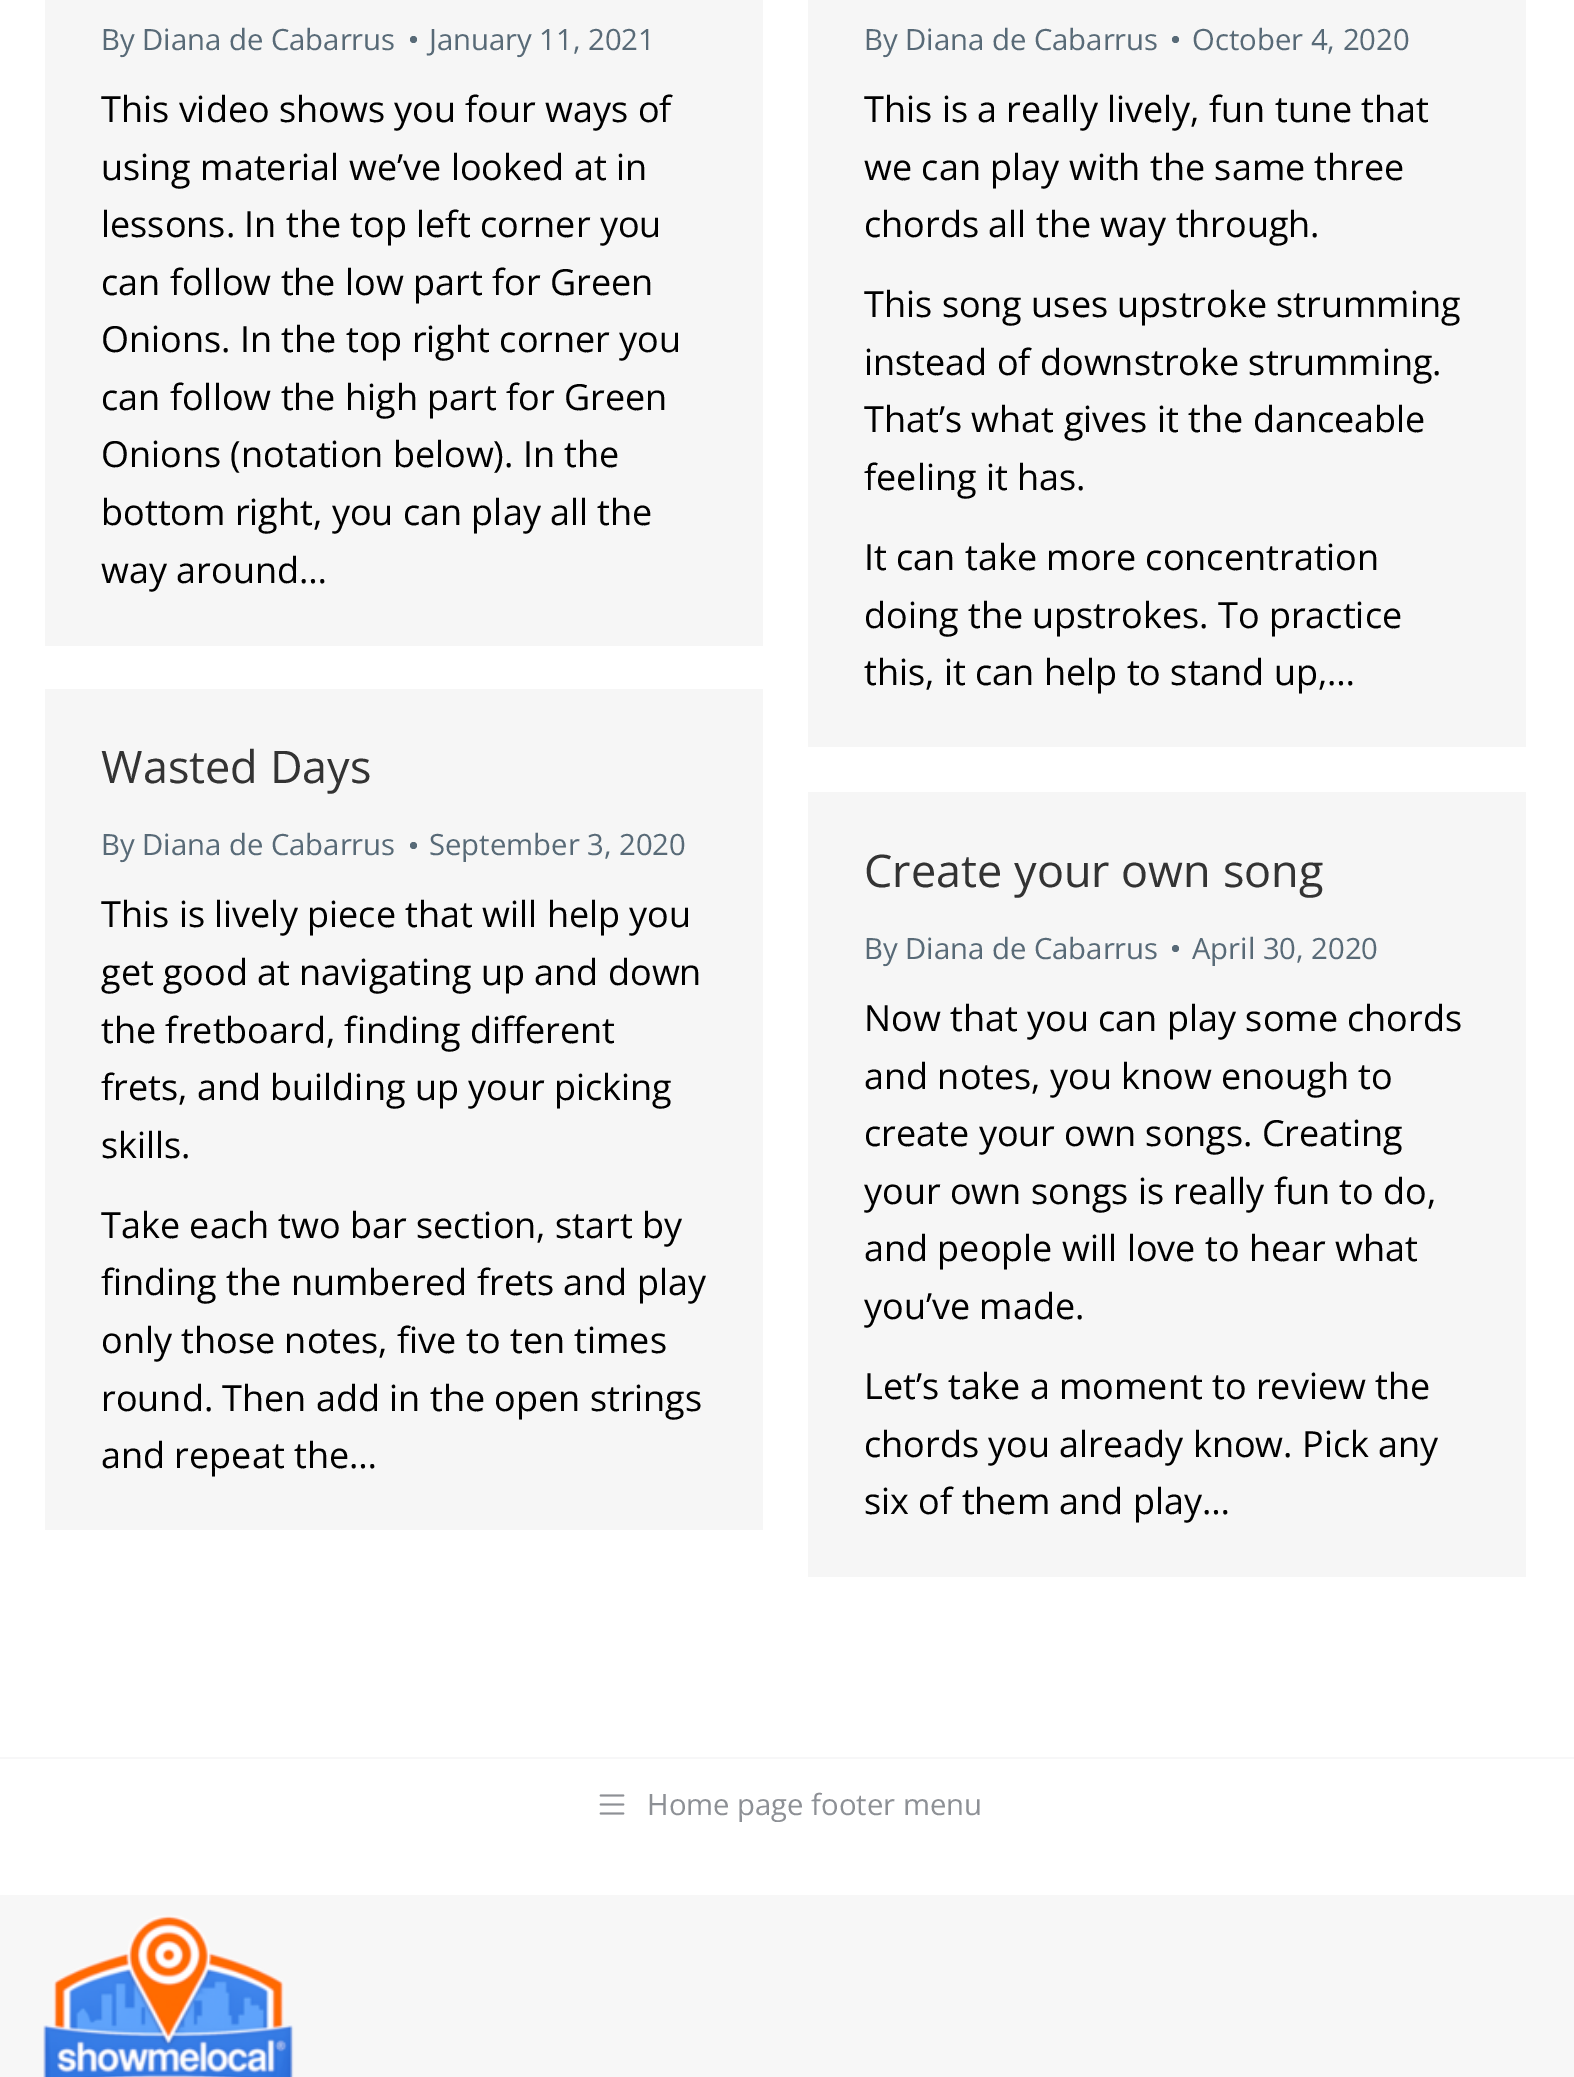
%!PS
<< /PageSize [1574 2077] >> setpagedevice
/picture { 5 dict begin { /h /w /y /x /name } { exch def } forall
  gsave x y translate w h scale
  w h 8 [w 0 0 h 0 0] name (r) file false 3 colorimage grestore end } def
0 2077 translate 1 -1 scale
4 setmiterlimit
0.969 setgray
0 0 1574 2077 rectfill
1 setgray
0 0 1574 1895 rectfill
0.965 setgray
45 0 718 646 rectfill
/OpenSans-Regular [29.25 0 0 -29.25 0 0] selectfont
0.345 0.416 0.467 setrgbcolor
101 50 moveto (By Diana de Cabarrus) show
newpath 413.5 39.5 3.5 0 360 arc closepath fill
429 50 moveto (January 11, 2021) show
/OpenSans-Regular [36 0 0 -36 0 0] selectfont
0 setgray
101 122 moveto (This video shows you four ways of) show
101 180 moveto (using material we’ve looked at in) show
101 237 moveto (lessons. In the top left corner you) show
101 295 moveto (can follow the low part for Green) show
101 352 moveto (Onions. In the top right corner you) show
101 410 moveto (can follow the high part for Green) show
101 467 moveto (Onions \(notation below\). In the) show
101 525 moveto (bottom right, you can play all the) show
101 583 moveto (way around…) show
0.965 setgray
808 0 718 747 rectfill
/OpenSans-Regular [29.25 0 0 -29.25 0 0] selectfont
0.345 0.416 0.467 setrgbcolor
864 50 moveto (By Diana de Cabarrus) show
newpath 1175.5 39.5 3.5 0 360 arc closepath fill
1192 50 moveto (October 4, 2020) show
/OpenSans-Regular [36 0 0 -36 0 0] selectfont
0 setgray
864 122 moveto (This is a really lively, fun tune that) show
864 180 moveto (we can play with the same three) show
864 237 moveto (chords all the way through.) show
864 317 moveto (This song uses upstroke strumming) show
864 375 moveto (instead of downstroke strumming.) show
864 432 moveto (That’s what gives it the danceable) show
864 490 moveto (feeling it has.) show
864 570 moveto (It can take more concentration) show
864 628 moveto (doing the upstrokes. To practice) show
864 685 moveto (this, it can help to stand up,…) show
0.965 setgray
45 689 718 841 rectfill
/OpenSans-Regular [45 0 0 -45 0 0] selectfont
0.2 setgray
101 783 moveto (Wasted Days) show
/OpenSans-Regular [29.25 0 0 -29.25 0 0] selectfont
0.345 0.416 0.467 setrgbcolor
101 855 moveto (By Diana de Cabarrus) show
newpath 413.5 845.5 3.5 0 360 arc closepath fill
429 855 moveto (September 3, 2020) show
/OpenSans-Regular [36 0 0 -36 0 0] selectfont
0 setgray
101 927 moveto (This is lively piece that will help you) show
101 985 moveto (get good at navigating up and down) show
101 1043 moveto (the fretboard, finding different) show
101 1100 moveto (frets, and building up your picking) show
101 1158 moveto (skills.) show
101 1238 moveto (Take each two bar section, start by) show
101 1295 moveto (finding the numbered frets and play) show
101 1353 moveto (only those notes, five to ten times) show
101 1411 moveto (round. Then add in the open strings) show
101 1468 moveto (and repeat the…) show
0.965 setgray
808 792 718 785 rectfill
/OpenSans-Regular [45 0 0 -45 0 0] selectfont
0.2 setgray
864 887 moveto (Create your own song) show
/OpenSans-Regular [29.25 0 0 -29.25 0 0] selectfont
0.345 0.416 0.467 setrgbcolor
864 959 moveto (By Diana de Cabarrus) show
newpath 1175.5 948.5 3.5 0 360 arc closepath fill
1192 959 moveto (April 30, 2020) show
/OpenSans-Regular [36 0 0 -36 0 0] selectfont
0 setgray
864 1031 moveto (Now that you can play some chords) show
864 1089 moveto (and notes, you know enough to) show
864 1146 moveto (create your own songs. Creating) show
864 1204 moveto (your own songs is really fun to do,) show
864 1261 moveto (and people will love to hear what) show
864 1319 moveto (you’ve made.) show
864 1399 moveto (Let’s take a moment to review the) show
864 1457 moveto (chords you already know. Pick any) show
864 1514 moveto (six of them and play…) show
0.969 0.969 0.973 setrgbcolor
0 1757 1574 2 rectfill
(img1.rgb) 599 1794 26 21 picture
/OpenSans-Regular [29.25 0 0 -29.25 0 0] selectfont
0.553 0.565 0.584 setrgbcolor
647 1815 moveto (Home page footer menu) show
(img2.rgb) 43 1915 251 162 picture
showpage
